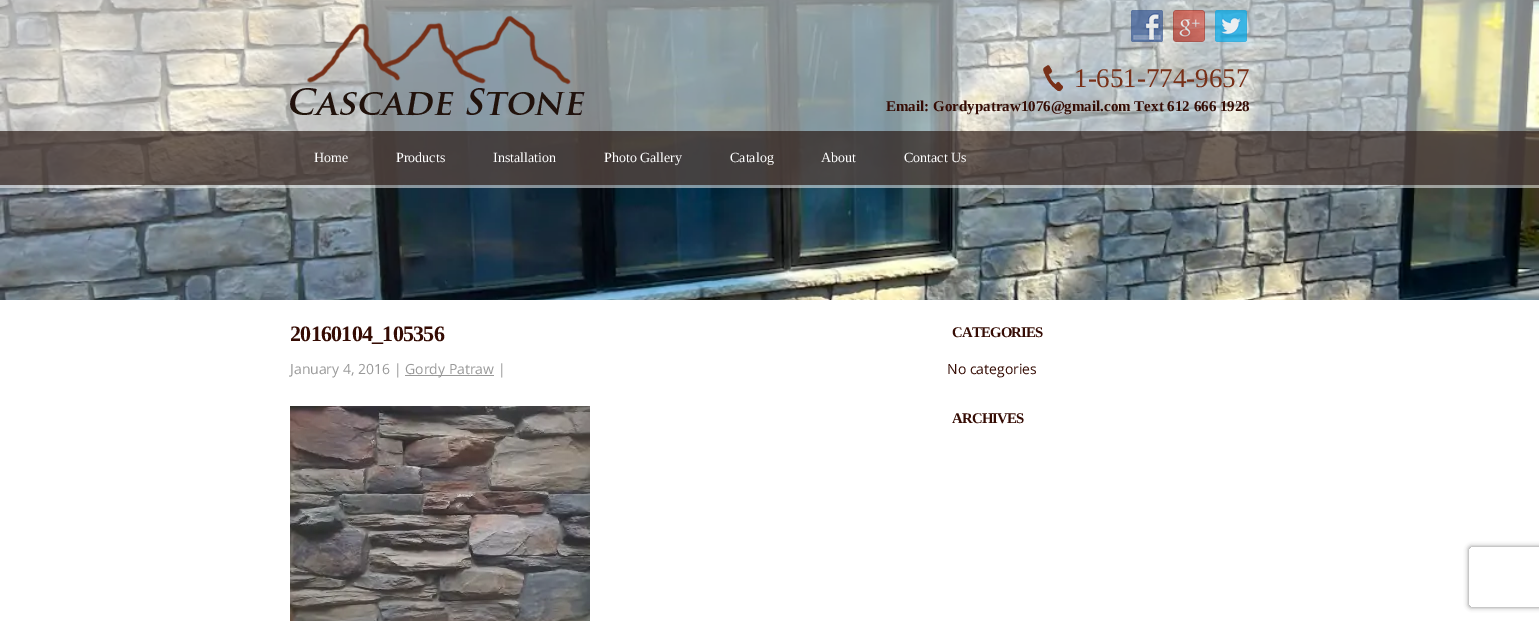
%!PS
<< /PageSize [1539 621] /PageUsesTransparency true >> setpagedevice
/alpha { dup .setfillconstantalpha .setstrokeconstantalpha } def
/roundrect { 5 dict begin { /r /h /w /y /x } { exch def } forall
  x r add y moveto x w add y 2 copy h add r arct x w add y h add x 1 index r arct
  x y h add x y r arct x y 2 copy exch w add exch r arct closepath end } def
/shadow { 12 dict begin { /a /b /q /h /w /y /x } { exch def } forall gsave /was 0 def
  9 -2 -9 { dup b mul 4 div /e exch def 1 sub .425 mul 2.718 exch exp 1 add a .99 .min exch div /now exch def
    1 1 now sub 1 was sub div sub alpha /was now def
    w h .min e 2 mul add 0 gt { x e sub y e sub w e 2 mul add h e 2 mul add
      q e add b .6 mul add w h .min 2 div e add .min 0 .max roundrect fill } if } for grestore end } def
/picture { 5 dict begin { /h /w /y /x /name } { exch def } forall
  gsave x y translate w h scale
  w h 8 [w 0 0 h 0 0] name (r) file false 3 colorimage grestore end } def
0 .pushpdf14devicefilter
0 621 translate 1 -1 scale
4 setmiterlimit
1 setgray
0 0 1539 621 rectfill
(img1.rgb) 0 0 1539 300 picture
0.5 alpha
0 0 1539 188 rectfill
1 alpha
(img2.rgb) 290 15 295 101 picture
(img3.rgb) 1131 10 32 32 picture
(img4.rgb) 1173 10 32 32 picture
(img5.rgb) 1215 10 32 32 picture
(img6.rgb) 1043 65 20 27 picture
/LiberationSerif-Regular [27 0 0 -27 0 0] selectfont
0.471 0.188 0.094 setrgbcolor
1074 87 moveto (1-651-774-9657) show
/LiberationSerif-Bold [15 0 0 -15 0 0] selectfont
0.208 0.047 0.016 setrgbcolor
886 111 moveto (Email: Gordypatraw1076@gmail.com Text 612 666 1928) show
0.65 alpha
0.133 0.067 0.043 setrgbcolor
0 131 1539 54 rectfill
/LiberationSerif-Regular [14 0 0 -14 0 0] selectfont
1 alpha
1 setgray
314 162 moveto (Home) show
396 162 moveto (Products) show
493 162 moveto (Installation) show
604 162 moveto (Photo Gallery) show
730 162 moveto (Catalog) show
821 162 moveto (About) show
904 162 moveto (Contact Us) show
/LiberationSerif-Bold [22 0 0 -22 0 0] selectfont
0.208 0.047 0.016 setrgbcolor
290 341 moveto -0.75 0 (20160104_105356) ashow
/OpenSans-Regular [14 0 0 -14 0 0] selectfont
0.6 setgray
290 374 moveto (January 4, 2016 |) show
405 375 89 1 rectfill
405 374 moveto (Gordy Patraw |) show
(img7.rgb) 290 406 300 215 picture
/LiberationSerif-Bold [14.75 0 0 -14.75 0 0] selectfont
0.208 0.047 0.016 setrgbcolor
952 337 moveto -0.75 0 (CATEGORIES) ashow
/OpenSans-Regular [14 0 0 -14 0 0] selectfont
947 374 moveto (No categories) show
/LiberationSerif-Bold [14.75 0 0 -14.75 0 0] selectfont
952 423 moveto -0.75 0 (ARCHIVES) ashow
gsave
newpath 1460 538 moveto 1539 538 lineto 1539 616 lineto 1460 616 lineto closepath 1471 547 moveto 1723 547 lineto 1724 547 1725 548 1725 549 curveto 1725 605 lineto 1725 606 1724 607 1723 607 curveto 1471 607 lineto 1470 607 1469 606 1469 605 curveto 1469 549 lineto 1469 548 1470 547 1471 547 curveto closepath eoclip newpath
0.502 setgray
1469 547 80 60 2 2.5 1 shadow
grestore
.poppdf14devicefilter showpage
